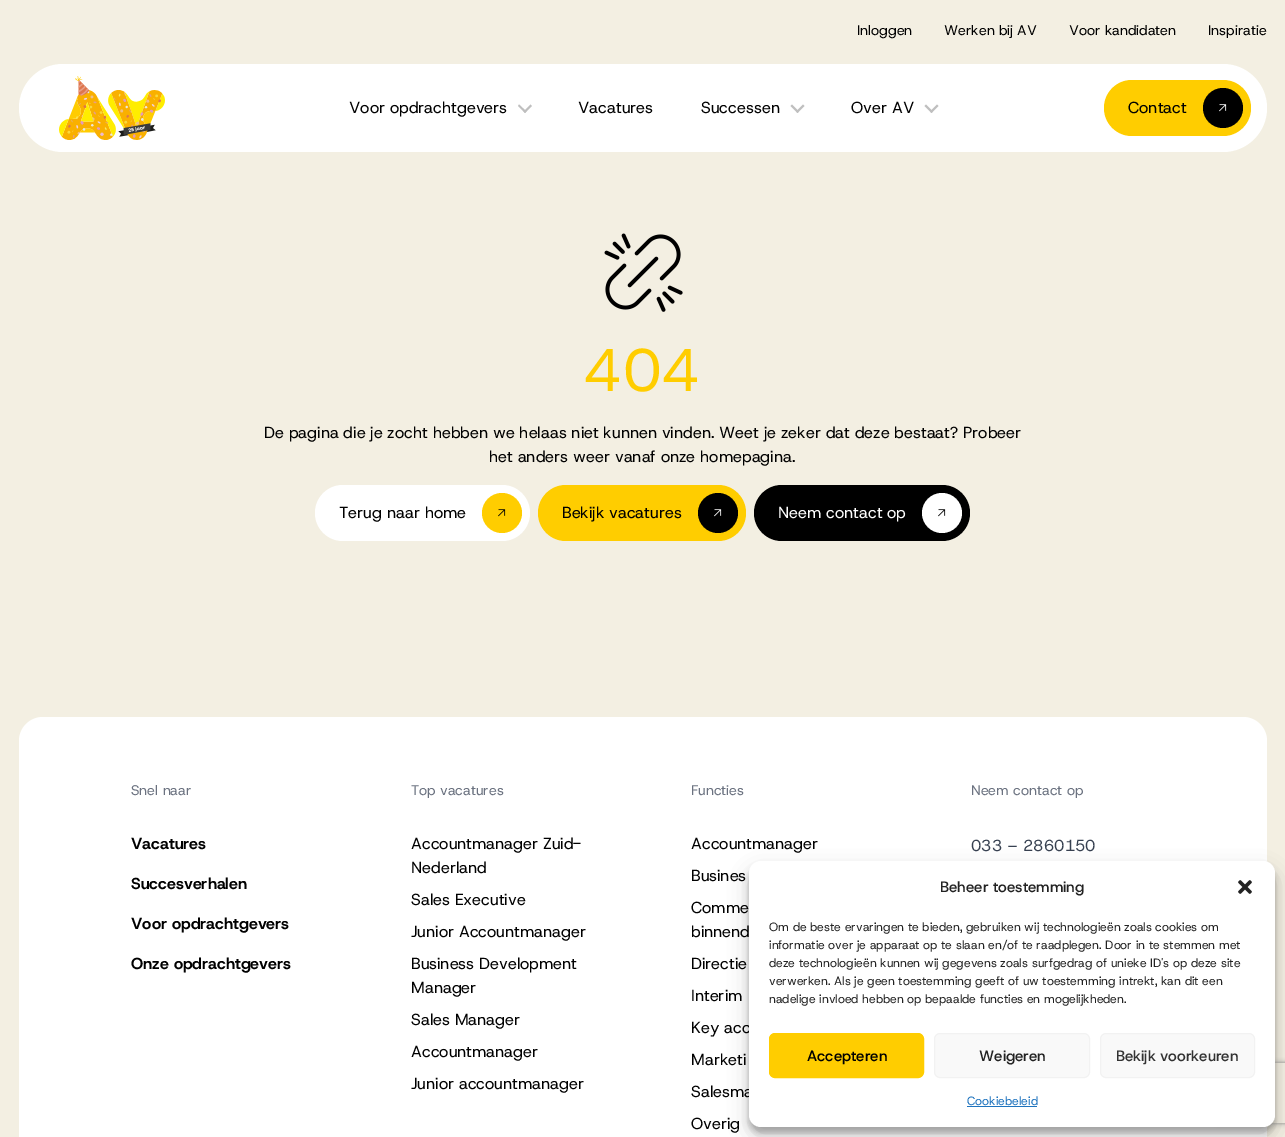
%!PS
<< /PageSize [1285 1137] /PageUsesTransparency true >> setpagedevice
/alpha { dup .setfillconstantalpha .setstrokeconstantalpha } def
/roundrect { 5 dict begin { /r /h /w /y /x } { exch def } forall
  x r add y moveto x w add y 2 copy h add r arct x w add y h add x 1 index r arct
  x y h add x y r arct x y 2 copy exch w add exch r arct closepath end } def
/shadow { 12 dict begin { /a /b /q /h /w /y /x } { exch def } forall gsave /was 0 def
  9 -2 -9 { dup b mul 4 div /e exch def 1 sub .425 mul 2.718 exch exp 1 add a .99 .min exch div /now exch def
    1 1 now sub 1 was sub div sub alpha /was now def
    w h .min e 2 mul add 0 gt { x e sub y e sub w e 2 mul add h e 2 mul add
      q e add b .6 mul add w h .min 2 div e add .min 0 .max roundrect fill } if } for grestore end } def
/picture { 5 dict begin { /h /w /y /x /name } { exch def } forall
  gsave x y translate w h scale
  w h 8 [w 0 0 h 0 0] name (r) file false 3 colorimage grestore end } def
0 .pushpdf14devicefilter
0 1137 translate 1 -1 scale
4 setmiterlimit
0.953 0.937 0.886 setrgbcolor
0 0 1285 1137 rectfill
/HostGrotesk-Regular [14 0 0 -14 0 0] selectfont
0 setgray
857 35 moveto (Inloggen) show
944 35 moveto (Werken bij AV) show
1069 35 moveto (Voor kandidaten) show
1208 35 moveto (Inspiratie) show
1 setgray
19 64 1248 88 44 roundrect fill
(img1.rgb) 59 76 106 64 picture
/HostGrotesk-Regular [16 0 0 -16 0 0] selectfont
0 setgray
349 113 moveto (Voor opdrachtgevers) show
0.749 setgray
newpath 530.5 104.5 moveto 532 106 lineto 525 113 lineto 523.5 111.5 lineto closepath fill
newpath 519 104.5 moveto 526.5 111.5 lineto 525 113 lineto 518 106 lineto closepath fill
0 setgray
578 113 moveto (Vacatures) show
701 113 moveto (Successen) show
0.749 setgray
newpath 803 104.5 moveto 804.5 106 lineto 797.5 113 lineto 796 111.5 lineto closepath fill
newpath 792 104.5 moveto 799 111.5 lineto 797.5 113 lineto 790.5 106 lineto closepath fill
0 setgray
851 113 moveto (Over AV) show
0.749 setgray
newpath 937 104.5 moveto 938.5 106 lineto 931.5 113 lineto 930 111.5 lineto closepath fill
newpath 926 104.5 moveto 933 111.5 lineto 931.5 113 lineto 924.5 106 lineto closepath fill
1 0.804 0 setrgbcolor
1104 80 147 56 28 roundrect fill
0 setgray
1128 113 moveto (Contact) show
newpath 1223 108 20 0 360 arc closepath fill
(img2.rgb) 1219 104 8 8 picture
(img3.rgb) 604 233 79 79 picture
/HostGrotesk-Regular [60 0 0 -60 0 0] selectfont
1 0.804 0 setrgbcolor
584 391 moveto (404) show
/HostGrotesk-Regular [16 0 0 -16 0 0] selectfont
0 setgray
264 438 moveto (De pagina die je zocht hebben we helaas niet kunnen vinden. Weet je zeker dat deze bestaat? Probeer) show
489 462 moveto (het anders weer vanaf onze homepagina.) show
1 setgray
315 485 215 56 28 roundrect fill
0 setgray
339 518 moveto (Terug naar home) show
1 0.804 0 setrgbcolor
newpath 502 513 20 0 360 arc closepath fill
(img4.rgb) 498 509 8 8 picture
538 485 208 56 28 roundrect fill
0 setgray
562 518 moveto (Bekijk vacatures) show
newpath 718 513 20 0 360 arc closepath fill
(img2.rgb) 714 509 8 8 picture
754 485 216 56 28 roundrect fill
1 setgray
778 518 moveto (Neem contact op) show
newpath 942 513 20 0 360 arc closepath fill
(img5.rgb) 938 509 8 8 picture
19 717 1248 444 24 roundrect fill
/HostGrotesk-Regular [14 0 0 -14 0 0] selectfont
0.42 0.447 0.502 setrgbcolor
131 795 moveto (Snel naar) show
/HostGrotesk-Bold [16 0 0 -16 0 0] selectfont
0 setgray
131 849 moveto (Vacatures) show
131 889 moveto (Succesverhalen) show
131 929 moveto (Voor opdrachtgevers) show
131 969 moveto (Onze opdrachtgevers) show
/HostGrotesk-Regular [14 0 0 -14 0 0] selectfont
0.42 0.447 0.502 setrgbcolor
411 795 moveto (Top vacatures) show
/HostGrotesk-Regular [16 0 0 -16 0 0] selectfont
0 setgray
411 849 moveto (Accountmanager Zuid-) show
411 873 moveto (Nederland) show
411 905 moveto (Sales Executive) show
411 937 moveto (Junior Accountmanager) show
411 969 moveto (Business Development) show
411 993 moveto (Manager) show
411 1025 moveto (Sales Manager) show
411 1057 moveto (Accountmanager) show
411 1089 moveto (Junior accountmanager) show
/HostGrotesk-Regular [14 0 0 -14 0 0] selectfont
0.42 0.447 0.502 setrgbcolor
691 795 moveto (Functies) show
/HostGrotesk-Regular [16 0 0 -16 0 0] selectfont
0 setgray
691 849 moveto (Accountmanager) show
691 881 moveto (Busines) show
691 913 moveto (Comme) show
691 937 moveto (binnend) show
691 969 moveto (Directie) show
691 1001 moveto (Interim) show
691 1033 moveto (Key acc) show
691 1065 moveto (Marketi) show
691 1097 moveto (Salesma) show
691 1129 moveto (Overig) show
/HostGrotesk-Regular [14 0 0 -14 0 0] selectfont
0.42 0.447 0.502 setrgbcolor
971 795 moveto (Neem contact op) show
/HostGrotesk-Regular [16 0 0 -16 0 0] selectfont
0.216 0.255 0.318 setrgbcolor
971 851 moveto (033 – 2860150) show
0 setgray
749 867 526 266 12 3 0.23 shadow
749 871 526 266 12 10 0.19 shadow
gsave
newpath 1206 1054 moveto 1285 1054 lineto 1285 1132 lineto 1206 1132 lineto closepath 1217 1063 moveto 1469 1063 lineto 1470 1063 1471 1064 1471 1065 curveto 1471 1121 lineto 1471 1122 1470 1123 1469 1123 curveto 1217 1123 lineto 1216 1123 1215 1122 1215 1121 curveto 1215 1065 lineto 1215 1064 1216 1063 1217 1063 curveto closepath eoclip newpath
0.502 setgray
1215 1063 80 60 2 2.5 1 shadow
grestore
1 setgray
749 861 526 266 12 roundrect fill
/HostGrotesk-Medium [15 0 0 -15 0 0] selectfont
0.133 setgray
940 892 moveto (Beheer toestemming) show
(img6.rgb) 1238 880 14 14 picture
/HostGrotesk-Regular [12 0 0 -12 0 0] selectfont
769 931 moveto (Om de beste ervaringen te bieden, gebruiken wij technologieën zoals cookies om) show
769 949 moveto (informatie over je apparaat op te slaan en/of te raadplegen. Door in te stemmen met) show
769 967 moveto (deze technologieën kunnen wij gegevens zoals surfgedrag of unieke ID's op deze site) show
769 985 moveto (verwerken. Als je geen toestemming geeft of uw toestemming intrekt, kan dit een) show
769 1003 moveto (nadelige invloed hebben op bepaalde functies en mogelijkheden.) show
1 0.804 0 setrgbcolor
769.5 1033.5 154 44 5.5 roundrect gsave fill grestore
stroke
/HostGrotesk-Medium [15 0 0 -15 0 0] selectfont
0 setgray
807 1061 moveto (Accepteren) show
0.976 setgray
934.5 1033.5 155 44 5.5 roundrect gsave fill grestore
0.949 setgray
stroke
0.133 setgray
979 1061 moveto (Weigeren) show
0.976 setgray
1100.5 1033.5 154 44 5.5 roundrect gsave fill grestore
0.949 setgray
stroke
0.2 setgray
1116 1061 moveto (Bekijk voorkeuren) show
/HostGrotesk-Regular [12 0 0 -12 0 0] selectfont
0.118 0.451 0.745 setrgbcolor
967 1105 moveto (Cookiebeleid) show
967 1106 70 1 rectfill
.poppdf14devicefilter showpage
